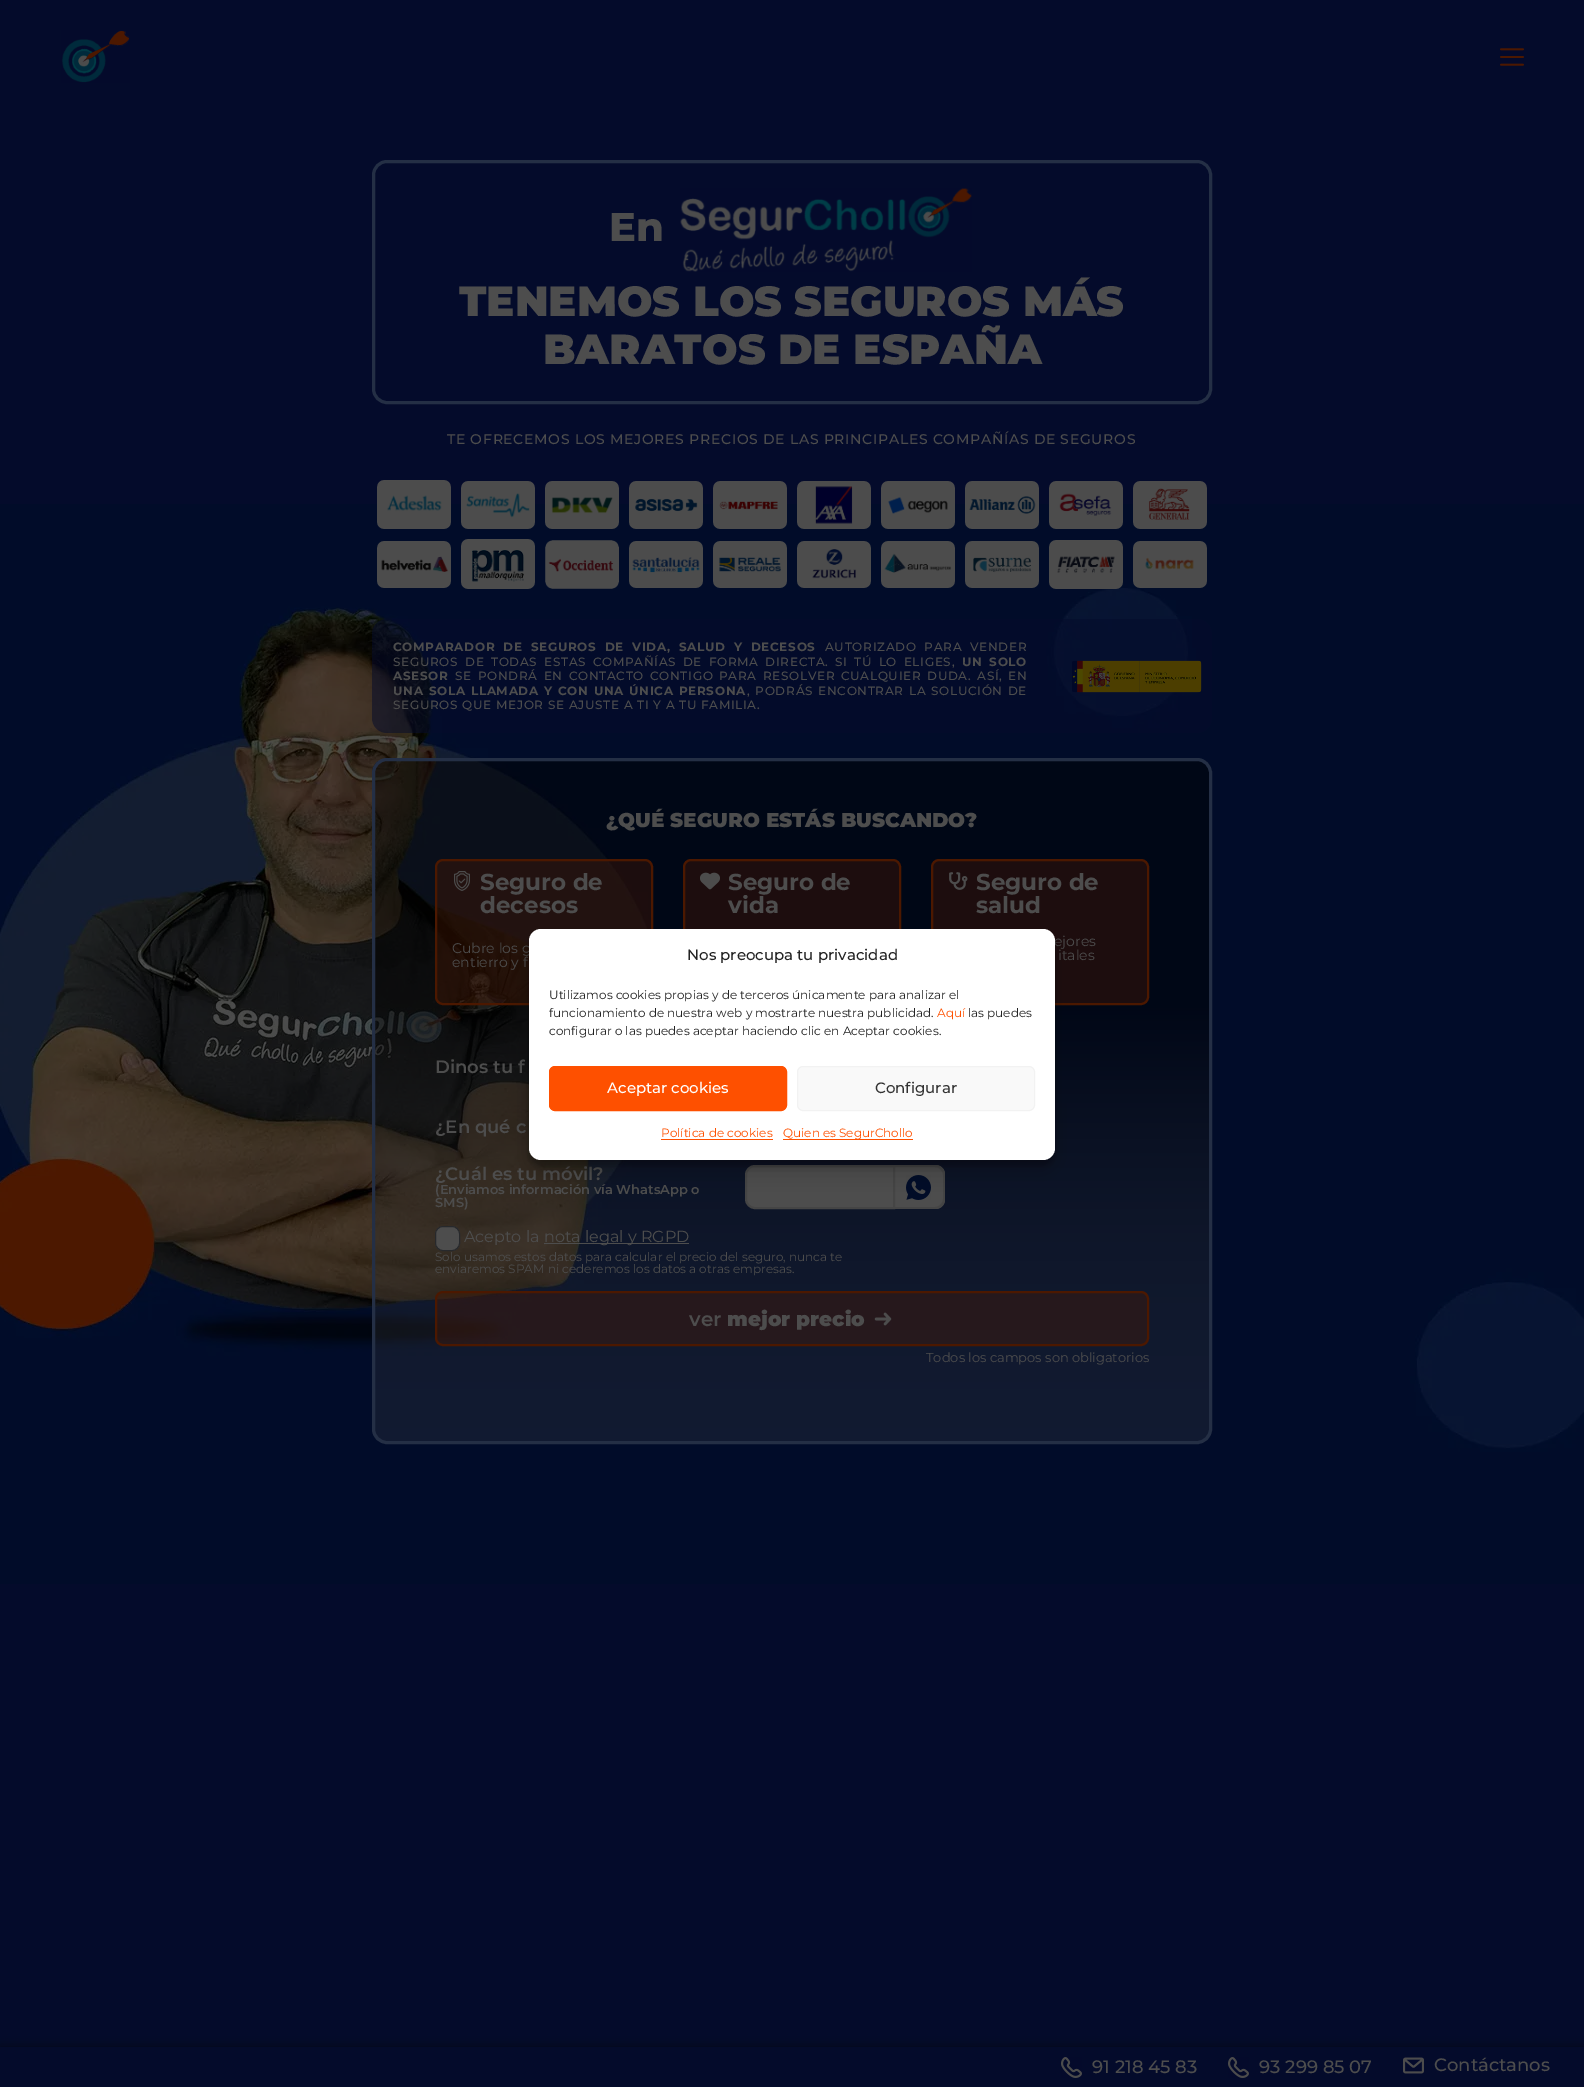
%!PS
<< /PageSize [1584 2087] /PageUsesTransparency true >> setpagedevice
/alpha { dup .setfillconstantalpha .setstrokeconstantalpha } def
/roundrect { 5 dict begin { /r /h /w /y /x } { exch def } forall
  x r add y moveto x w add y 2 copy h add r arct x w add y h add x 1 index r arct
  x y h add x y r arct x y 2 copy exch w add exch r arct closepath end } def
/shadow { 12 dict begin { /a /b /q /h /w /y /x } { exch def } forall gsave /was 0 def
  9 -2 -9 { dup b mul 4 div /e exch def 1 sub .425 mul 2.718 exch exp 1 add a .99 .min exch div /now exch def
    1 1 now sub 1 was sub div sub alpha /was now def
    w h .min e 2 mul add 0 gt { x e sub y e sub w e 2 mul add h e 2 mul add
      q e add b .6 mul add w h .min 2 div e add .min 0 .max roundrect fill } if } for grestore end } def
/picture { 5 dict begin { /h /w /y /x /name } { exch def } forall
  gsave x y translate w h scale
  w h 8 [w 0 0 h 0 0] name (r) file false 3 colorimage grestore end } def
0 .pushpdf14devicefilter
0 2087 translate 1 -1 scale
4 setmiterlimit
0.016 0.043 0.169 setrgbcolor
0 0 1584 2087 rectfill
(img1.rgb) 61 30 69 53 picture
(img2.rgb) 1500 48 24 18 picture
0.141 0.184 0.271 setrgbcolor
3 setlinewidth
373.5 161.5 837 241 13.5 roundrect stroke
/Montserrat-ExtraBold [40 0 0 -40 0 0] selectfont
0.302 setgray
609 241 moveto (En) show
(img3.rgb) 680 188 292 84 picture
/Montserrat-Black [42 0 0 -42 0 0] selectfont
459 316 moveto (TENEMOS LOS SEGUROS MÁS) show
543 364 moveto (BARATOS DE ESPAÑA) show
/Montserrat-Medium [14 0 0 -14 0 0] selectfont
447 444 moveto 0.7 0 (TE OFRECEMOS LOS MEJORES PRECIOS DE LAS PRINCIPALES COMPAÑÍAS DE SEGUROS) ashow
(img30.rgb) 0 504 1584 1080 picture
(img4.rgb) 377 480 74 49 picture
(img5.rgb) 461 481 74 48 picture
(img6.rgb) 545 481 74 48 picture
(img7.rgb) 629 481 74 48 picture
(img8.rgb) 713 481 74 48 picture
(img9.rgb) 797 481 74 48 picture
(img10.rgb) 881 481 74 48 picture
(img11.rgb) 965 481 74 48 picture
(img12.rgb) 1049 481 74 48 picture
(img13.rgb) 1133 481 74 48 picture
(img14.rgb) 377 541 74 47 picture
(img15.rgb) 461 539 74 50 picture
(img16.rgb) 545 540 74 49 picture
(img17.rgb) 629 541 74 47 picture
(img18.rgb) 713 541 74 47 picture
(img19.rgb) 797 541 74 47 picture
(img20.rgb) 881 541 74 47 picture
(img21.rgb) 965 541 74 47 picture
(img22.rgb) 1049 540 74 49 picture
(img23.rgb) 1133 541 74 47 picture
0.53 alpha
0.016 0.043 0.169 setrgbcolor
372 619 840 114 15 roundrect fill
/Montserrat-Bold [12 0 0 -12 0 0] selectfont
1 alpha
0.302 setgray
393 651 moveto 4 0 32 0.7 0 (COMPARADOR DE SEGUROS DE VIDA, SALUD Y DECESOS) awidthshow
/Montserrat-Medium [12 0 0 -12 0 0] selectfont
825 651 moveto 4 0 32 0.7 0 (AUTORIZADO PARA VENDER) awidthshow
393 666 moveto 2.6 0 32 0.7 0 (SEGUROS DE TODAS ESTAS COMPAÑÍAS DE FORMA DIRECTA. SI TÚ LO ELIGES,) awidthshow
/Montserrat-Bold [12 0 0 -12 0 0] selectfont
962 666 moveto 2.6 0 32 0.7 0 (UN SOLO) awidthshow
393 680 moveto 0.7 0 (ASESOR) ashow
/Montserrat-Medium [12 0 0 -12 0 0] selectfont
455 680 moveto 1.9 0 32 0.7 0 (SE PONDRÁ EN CONTACTO CONTIGO PARA RESOLVER CUALQUIER DUDA. ASÍ, EN) awidthshow
/Montserrat-Bold [12 0 0 -12 0 0] selectfont
393 695 moveto 1 0 32 0.7 0 (UNA SOLA LLAMADA Y CON UNA ÚNICA PERSONA) awidthshow
/Montserrat-Medium [12 0 0 -12 0 0] selectfont
747 695 moveto 1 0 32 0.7 0 (, PODRÁS ENCONTRAR LA SOLUCIÓN DE) awidthshow
393 709 moveto 0.7 0 (SEGUROS QUE MEJOR SE AJUSTE A TI Y A TU FAMILIA.) ashow
(img24.rgb) 1072 660 130 33 picture
0.141 0.184 0.271 setrgbcolor
373.5 759.5 837 683 13.5 roundrect stroke
/Montserrat-Black [20 0 0 -20 0 0] selectfont
0.302 setgray
606 827 moveto (¿QUÉ SEGURO ESTÁS BUSCANDO?) show
0.37 alpha
0.298 0.094 0 setrgbcolor
436 860 216 144 7 roundrect fill
1 alpha
2 setlinewidth
436 860 216 144 7 roundrect stroke
(img25.rgb) 454 871 16 20 picture
/Montserrat-Bold [23 0 0 -23 0 0] selectfont
0.302 setgray
480 890 moveto (Seguro de) show
480 913 moveto (decesos) show
/Montserrat-Regular [14 0 0 -14 0 0] selectfont
452 953 moveto (Cubre los g) show
452 967 moveto (entierro y f) show
0.114 0.051 0.055 setrgbcolor
684 860 216 144 7 roundrect gsave fill grestore
0.298 0.094 0 setrgbcolor
stroke
(img26.rgb) 700 872 20 18 picture
/Montserrat-Bold [23 0 0 -23 0 0] selectfont
0.302 setgray
728 890 moveto (Seguro de) show
728 913 moveto (vida) show
0.114 0.051 0.055 setrgbcolor
932 860 216 144 7 roundrect gsave fill grestore
0.298 0.094 0 setrgbcolor
stroke
(img27.rgb) 949 872 19 18 picture
0.302 setgray
976 890 moveto (Seguro de) show
976 913 moveto (salud) show
/Montserrat-Regular [14 0 0 -14 0 0] selectfont
1054 946 moveto (ejores) show
1058 960 moveto (itales) show
/Montserrat-SemiBold [18 0 0 -18 0 0] selectfont
435 1073 moveto (Dinos tu f) show
435 1133 moveto (¿En qué c) show
435 1180 moveto (¿Cuál es tu móvil?) show
/Montserrat-SemiBold [13 0 0 -13 0 0] selectfont
435 1194 moveto (\(Enviamos información vía WhatsApp o) show
435 1207 moveto (SMS\)) show
newpath 894 1165 moveto 935 1165 lineto 940.5 1165 945 1169.5 945 1175 curveto 945 1199 lineto 945 1204.5 940.5 1209 935 1209 curveto 894 1209 lineto closepath fill
0.271 setgray
newpath 894 1165 moveto 935 1165 lineto 941 1165 945 1169 945 1175 curveto 945 1199 lineto 945 1205 941 1209 935 1209 curveto 894 1209 lineto closepath 894 1167 moveto 935 1167 lineto 939 1167 943 1171 943 1175 curveto 943 1199 lineto 943 1203 939 1207 935 1207 curveto 894 1207 lineto closepath eofill
0.302 setgray
newpath 755 1166 moveto 894 1166 lineto 894 1208 lineto 755 1208 lineto 750 1208 746 1204 746 1199 curveto 746 1175 lineto 746 1170 750 1166 755 1166 curveto closepath gsave fill grestore
0.271 setgray
stroke
(img28.rgb) 906 1175 25 25 picture
0.302 setgray
435.5 1226.5 24 24 7.5 roundrect gsave fill grestore
0.153 0.161 0.173 setrgbcolor
1 setlinewidth
stroke
/Montserrat-Regular [16 0 0 -16 0 0] selectfont
0.302 setgray
464 1242 moveto (Acepto la) show
544 1243 145 1 rectfill
544 1242 moveto (nota legal y RGPD) show
/Montserrat-Regular [12 0 0 -12 0 0] selectfont
435 1261 moveto (Solo usamos estos datos para calcular el precio del seguro, nunca te) show
435 1273 moveto (enviaremos SPAM ni cederemos los datos a otras empresas.) show
0.37 alpha
0.298 0.094 0 setrgbcolor
436 1292 712 53 7 roundrect fill
1 alpha
2 setlinewidth
436 1292 712 53 7 roundrect stroke
/Montserrat-SemiBold [20 0 0 -20 0 0] selectfont
0.302 setgray
689 1326 moveto (ver) show
/Montserrat-Black [20 0 0 -20 0 0] selectfont
727 1326 moveto (mejor precio) show
(img29.rgb) 874 1312 18 14 picture
/Montserrat-Regular [13 0 0 -13 0 0] selectfont
926 1362 moveto (Todos los campos son obligatorios) show
0 setgray
529 935 526 231 12 3 0.23 shadow
529 939 526 231 12 10 0.19 shadow
1 setgray
529 929 526 231 12 roundrect fill
/Montserrat-Medium [15 0 0 -15 0 0] selectfont
0.133 setgray
687 960 moveto (Nos preocupa tu privacidad) show
/Montserrat-Regular [12 0 0 -12 0 0] selectfont
549 999 moveto (Utilizamos cookies propias y de terceros únicamente para analizar el) show
549 1017 moveto (funcionamiento de nuestra web y mostrarte nuestra publicidad.) show
0.996 0.314 0 setrgbcolor
937 1017 moveto (Aquí) show
0.133 setgray
968 1017 moveto (las puedes) show
549 1035 moveto (configurar o las puedes aceptar haciendo clic en Aceptar cookies.) show
0.996 0.314 0 setrgbcolor
549.5 1066.5 237 44 5.5 roundrect gsave fill grestore
1 setlinewidth
stroke
/Montserrat-Medium [15 0 0 -15 0 0] selectfont
1 setgray
607 1093 moveto (Aceptar cookies) show
0.976 setgray
797.5 1066.5 237 44 5.5 roundrect gsave fill grestore
0.949 setgray
stroke
0.2 setgray
875 1093 moveto (Configurar) show
/Montserrat-Regular [12 0 0 -12 0 0] selectfont
0.996 0.314 0 setrgbcolor
661 1137 moveto (Política de cookies) show
661 1139 112 1 rectfill
783 1139 130 1 rectfill
783 1137 moveto (Quien es SegurChollo) show
0 setgray
0 2047 1584 40 0 5 0.5 shadow
0.016 0.043 0.169 setrgbcolor
0 2047 1584 40 rectfill
(img31.rgb) 1061 2057 21 21 picture
/Montserrat-Medium [18 0 0 -18 0 0] selectfont
0.302 setgray
1092 2073 moveto (91 218 45 83) show
(img31.rgb) 1228 2057 21 21 picture
1259 2073 moveto (93 299 85 07) show
(img32.rgb) 1403 2057 21 17 picture
1434 2071 moveto (Contáctanos) show
.poppdf14devicefilter showpage
